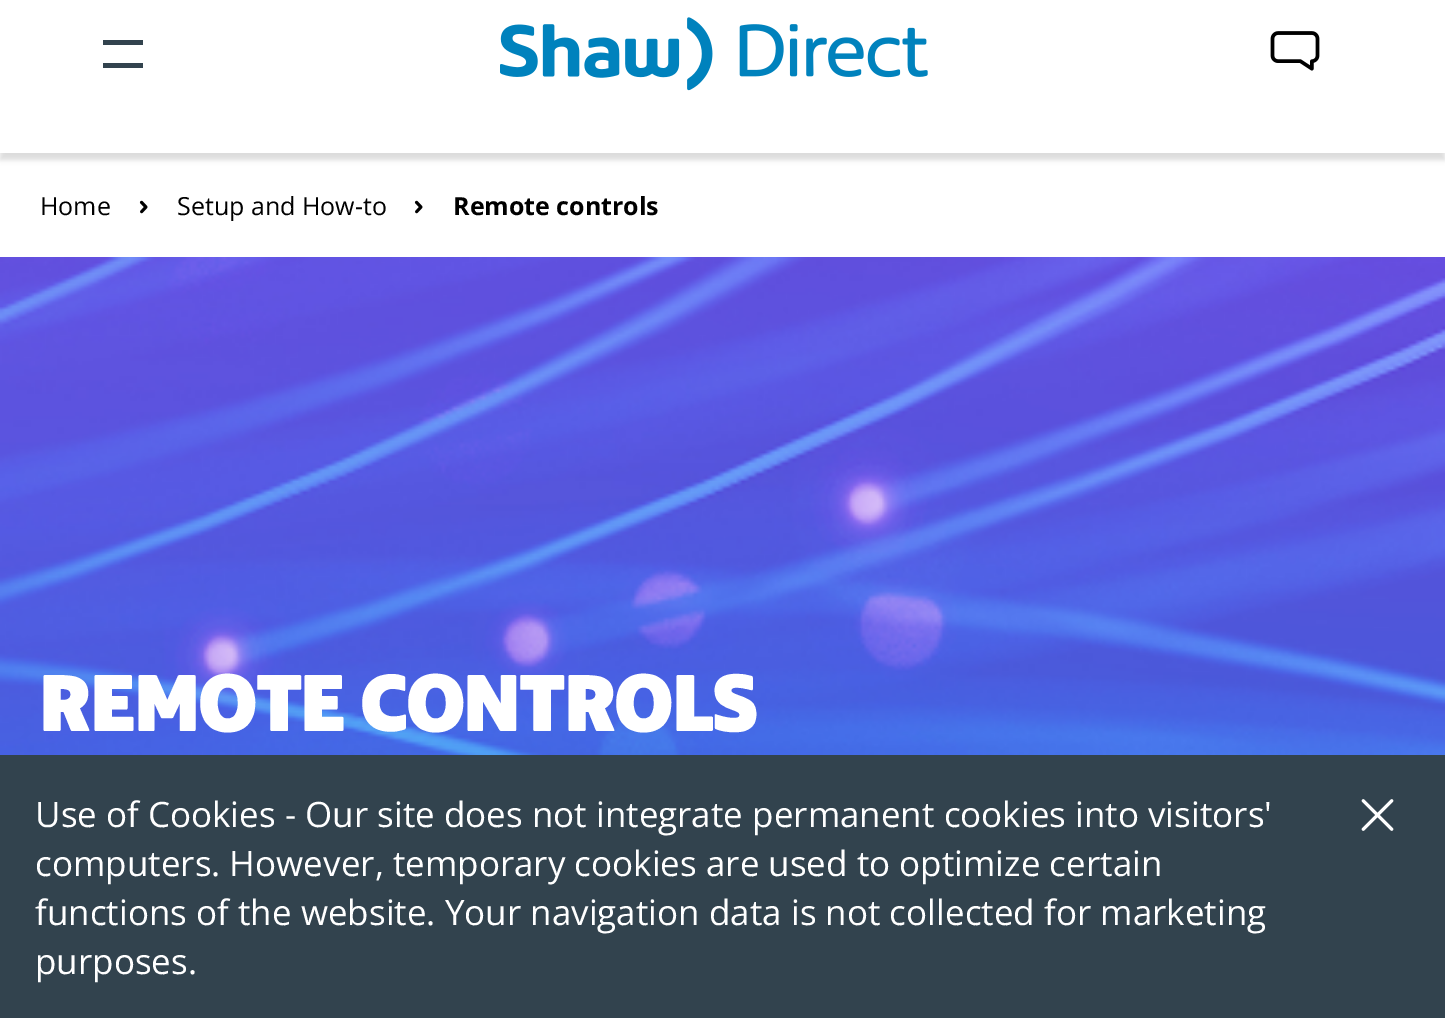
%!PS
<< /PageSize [1445 1018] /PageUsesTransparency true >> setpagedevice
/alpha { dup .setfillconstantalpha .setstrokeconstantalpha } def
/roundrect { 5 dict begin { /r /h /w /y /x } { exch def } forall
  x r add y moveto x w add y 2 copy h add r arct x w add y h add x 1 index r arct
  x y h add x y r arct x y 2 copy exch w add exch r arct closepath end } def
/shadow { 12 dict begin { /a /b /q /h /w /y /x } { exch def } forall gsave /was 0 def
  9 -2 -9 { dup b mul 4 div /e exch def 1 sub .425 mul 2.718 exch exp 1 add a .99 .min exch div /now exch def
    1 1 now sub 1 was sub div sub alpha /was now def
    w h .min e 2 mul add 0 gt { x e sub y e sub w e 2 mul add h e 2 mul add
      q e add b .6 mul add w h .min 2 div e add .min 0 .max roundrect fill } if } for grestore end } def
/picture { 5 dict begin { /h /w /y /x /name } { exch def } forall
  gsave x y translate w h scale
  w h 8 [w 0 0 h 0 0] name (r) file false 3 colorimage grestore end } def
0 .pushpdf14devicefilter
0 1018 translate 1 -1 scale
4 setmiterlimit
1 setgray
0 0 1445 1018 rectfill
0 setgray
0 -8 1445 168 0 2.5 0.14 shadow
1 setgray
0 0 1445 153 rectfill
0.196 0.263 0.306 setrgbcolor
103 40 40 5 rectfill
103 63 40 5 rectfill
(img1.rgb) 500 17 428 74 picture
(img2.rgb) 1270 31 50 40 picture
/OpenSans-Regular [25 0 0 -25 0 0] selectfont
0 setgray
40 215 moveto (Home) show
(img3.rgb) 139 200 9 14 picture
177 215 moveto (Setup and How-to) show
(img3.rgb) 414 200 9 14 picture
/OpenSans-Bold [25 0 0 -25 0 0] selectfont
453 215 moveto (Remote controls) show
(img4.rgb) 0 257 1445 498 picture
/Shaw-Black [80 0 0 -80 0 0] selectfont
1 setgray
40 731 moveto (REMOTE CONTROLS) show
0.196 0.263 0.306 setrgbcolor
0 755 1445 263 rectfill
/OpenSans-Regular [35 0 0 -35 0 0] selectfont
1 setgray
35 827 moveto (Use of Cookies - Our site does not integrate permanent cookies into visitors') show
(img5.rgb) 1361 799 33 32 picture
35 876 moveto (computers. However, temporary cookies are used to optimize certain) show
35 925 moveto (functions of the website. Your navigation data is not collected for marketing) show
35 974 moveto (purposes.) show
.poppdf14devicefilter showpage
